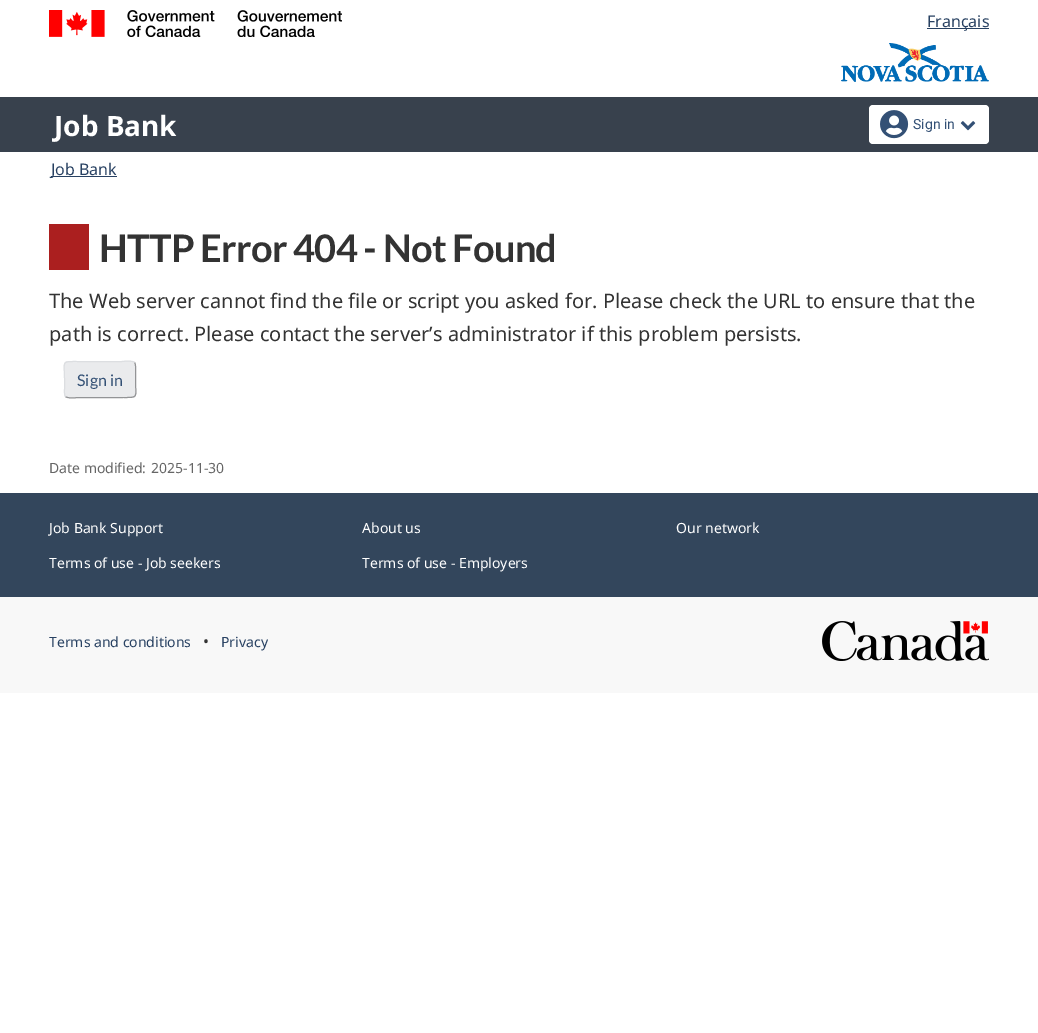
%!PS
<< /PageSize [1038 1033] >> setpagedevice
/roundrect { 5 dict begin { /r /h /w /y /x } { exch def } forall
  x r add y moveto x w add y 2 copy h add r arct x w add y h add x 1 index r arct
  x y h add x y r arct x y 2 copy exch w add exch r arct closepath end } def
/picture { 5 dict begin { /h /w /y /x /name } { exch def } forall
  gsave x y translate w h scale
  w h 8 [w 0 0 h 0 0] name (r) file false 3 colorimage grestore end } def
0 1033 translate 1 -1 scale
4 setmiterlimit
1 setgray
0 0 1038 1033 rectfill
(img1.rgb) 49 10 293 27 picture
0.157 0.255 0.384 setrgbcolor
927 28 62 1 rectfill
/NotoSans-Regular [16 0 0 -16 0 0] selectfont
927 27 moveto (Français) show
(img2.rgb) 841 43 148 39 picture
0.22 0.255 0.302 setrgbcolor
0 97 1038 55 rectfill
/NotoSans-Bold [28 0 0 -28 0 0] selectfont
1 setgray
54 136 moveto (Job Bank) show
869 105 120 39 4 roundrect fill
(img3.rgb) 880 110 29 29 picture
/Roboto-Regular [14 0 0 -14 0 0] selectfont
0.2 0.314 0.459 setrgbcolor
913 129 moveto (Sign in) show
(img4.rgb) 960 121 16 10 picture
0.157 0.255 0.384 setrgbcolor
51 176 66 1 rectfill
/NotoSans-Regular [16 0 0 -16 0 0] selectfont
51 175 moveto (Job Bank) show
0.671 0.122 0.122 setrgbcolor
49 224 40 46 rectfill
/Lato-Bold [38 0 0 -38 0 0] selectfont
0.2 setgray
99 262 moveto -0.75 0 (HTTP Error 404 - Not Found) ashow
/NotoSans-Regular [20 0 0 -20 0 0] selectfont
49 308 moveto (The Web server cannot find the file or script you asked for. Please check the URL to ensure that the) show
49 341 moveto (path is correct. Please contact the server’s administrator if this problem persists.) show
0.918 0.922 0.929 setrgbcolor
64 361 72 37 4 roundrect fill
0.576 0.58 0.588 setrgbcolor
newpath 134.5 362.5 moveto 136 364.5 135.5 368 135.5 370 curveto 135.5 379.5 lineto 135.5 398.5 139.5 397.5 121.5 397.5 curveto 78.5 397.5 lineto 77.5 397.5 68 399 65.5 396.5 curveto stroke
0.863 0.871 0.882 setrgbcolor
newpath 65.5 396.5 moveto 64 394.5 64.5 391 64.5 389 curveto 64.5 379.5 lineto 64.5 360.5 60.5 361.5 78.5 361.5 curveto 121.5 361.5 lineto 122.5 361.5 132 360 134.5 362.5 curveto stroke
/Lato-Regular [16 0 0 -16 0 0] selectfont
0.2 0.314 0.459 setrgbcolor
77 386 moveto (Sign in) show
/NotoSans-Regular [14 0 0 -14 0 0] selectfont
0.4 setgray
49 473 moveto (Date modified:) show
151 473 moveto (2025-11-30) show
0.2 0.275 0.361 setrgbcolor
0 493 1038 104 rectfill
1 setgray
49 533 moveto (Job Bank Support) show
362 533 moveto (About us) show
676 533 moveto (Our network) show
49 568 moveto (Terms of use - Job seekers) show
362 568 moveto (Terms of use - Employers) show
0.973 setgray
0 597 1038 96 rectfill
0.157 0.255 0.384 setrgbcolor
49 647 moveto (Terms and conditions) show
/NotoSans-Regular [16 0 0 -16 0 0] selectfont
0.2 setgray
203 647 moveto (•) show
/NotoSans-Regular [14 0 0 -14 0 0] selectfont
0.157 0.255 0.384 setrgbcolor
221 647 moveto (Privacy) show
(img5.rgb) 822 621 167 40 picture
showpage
